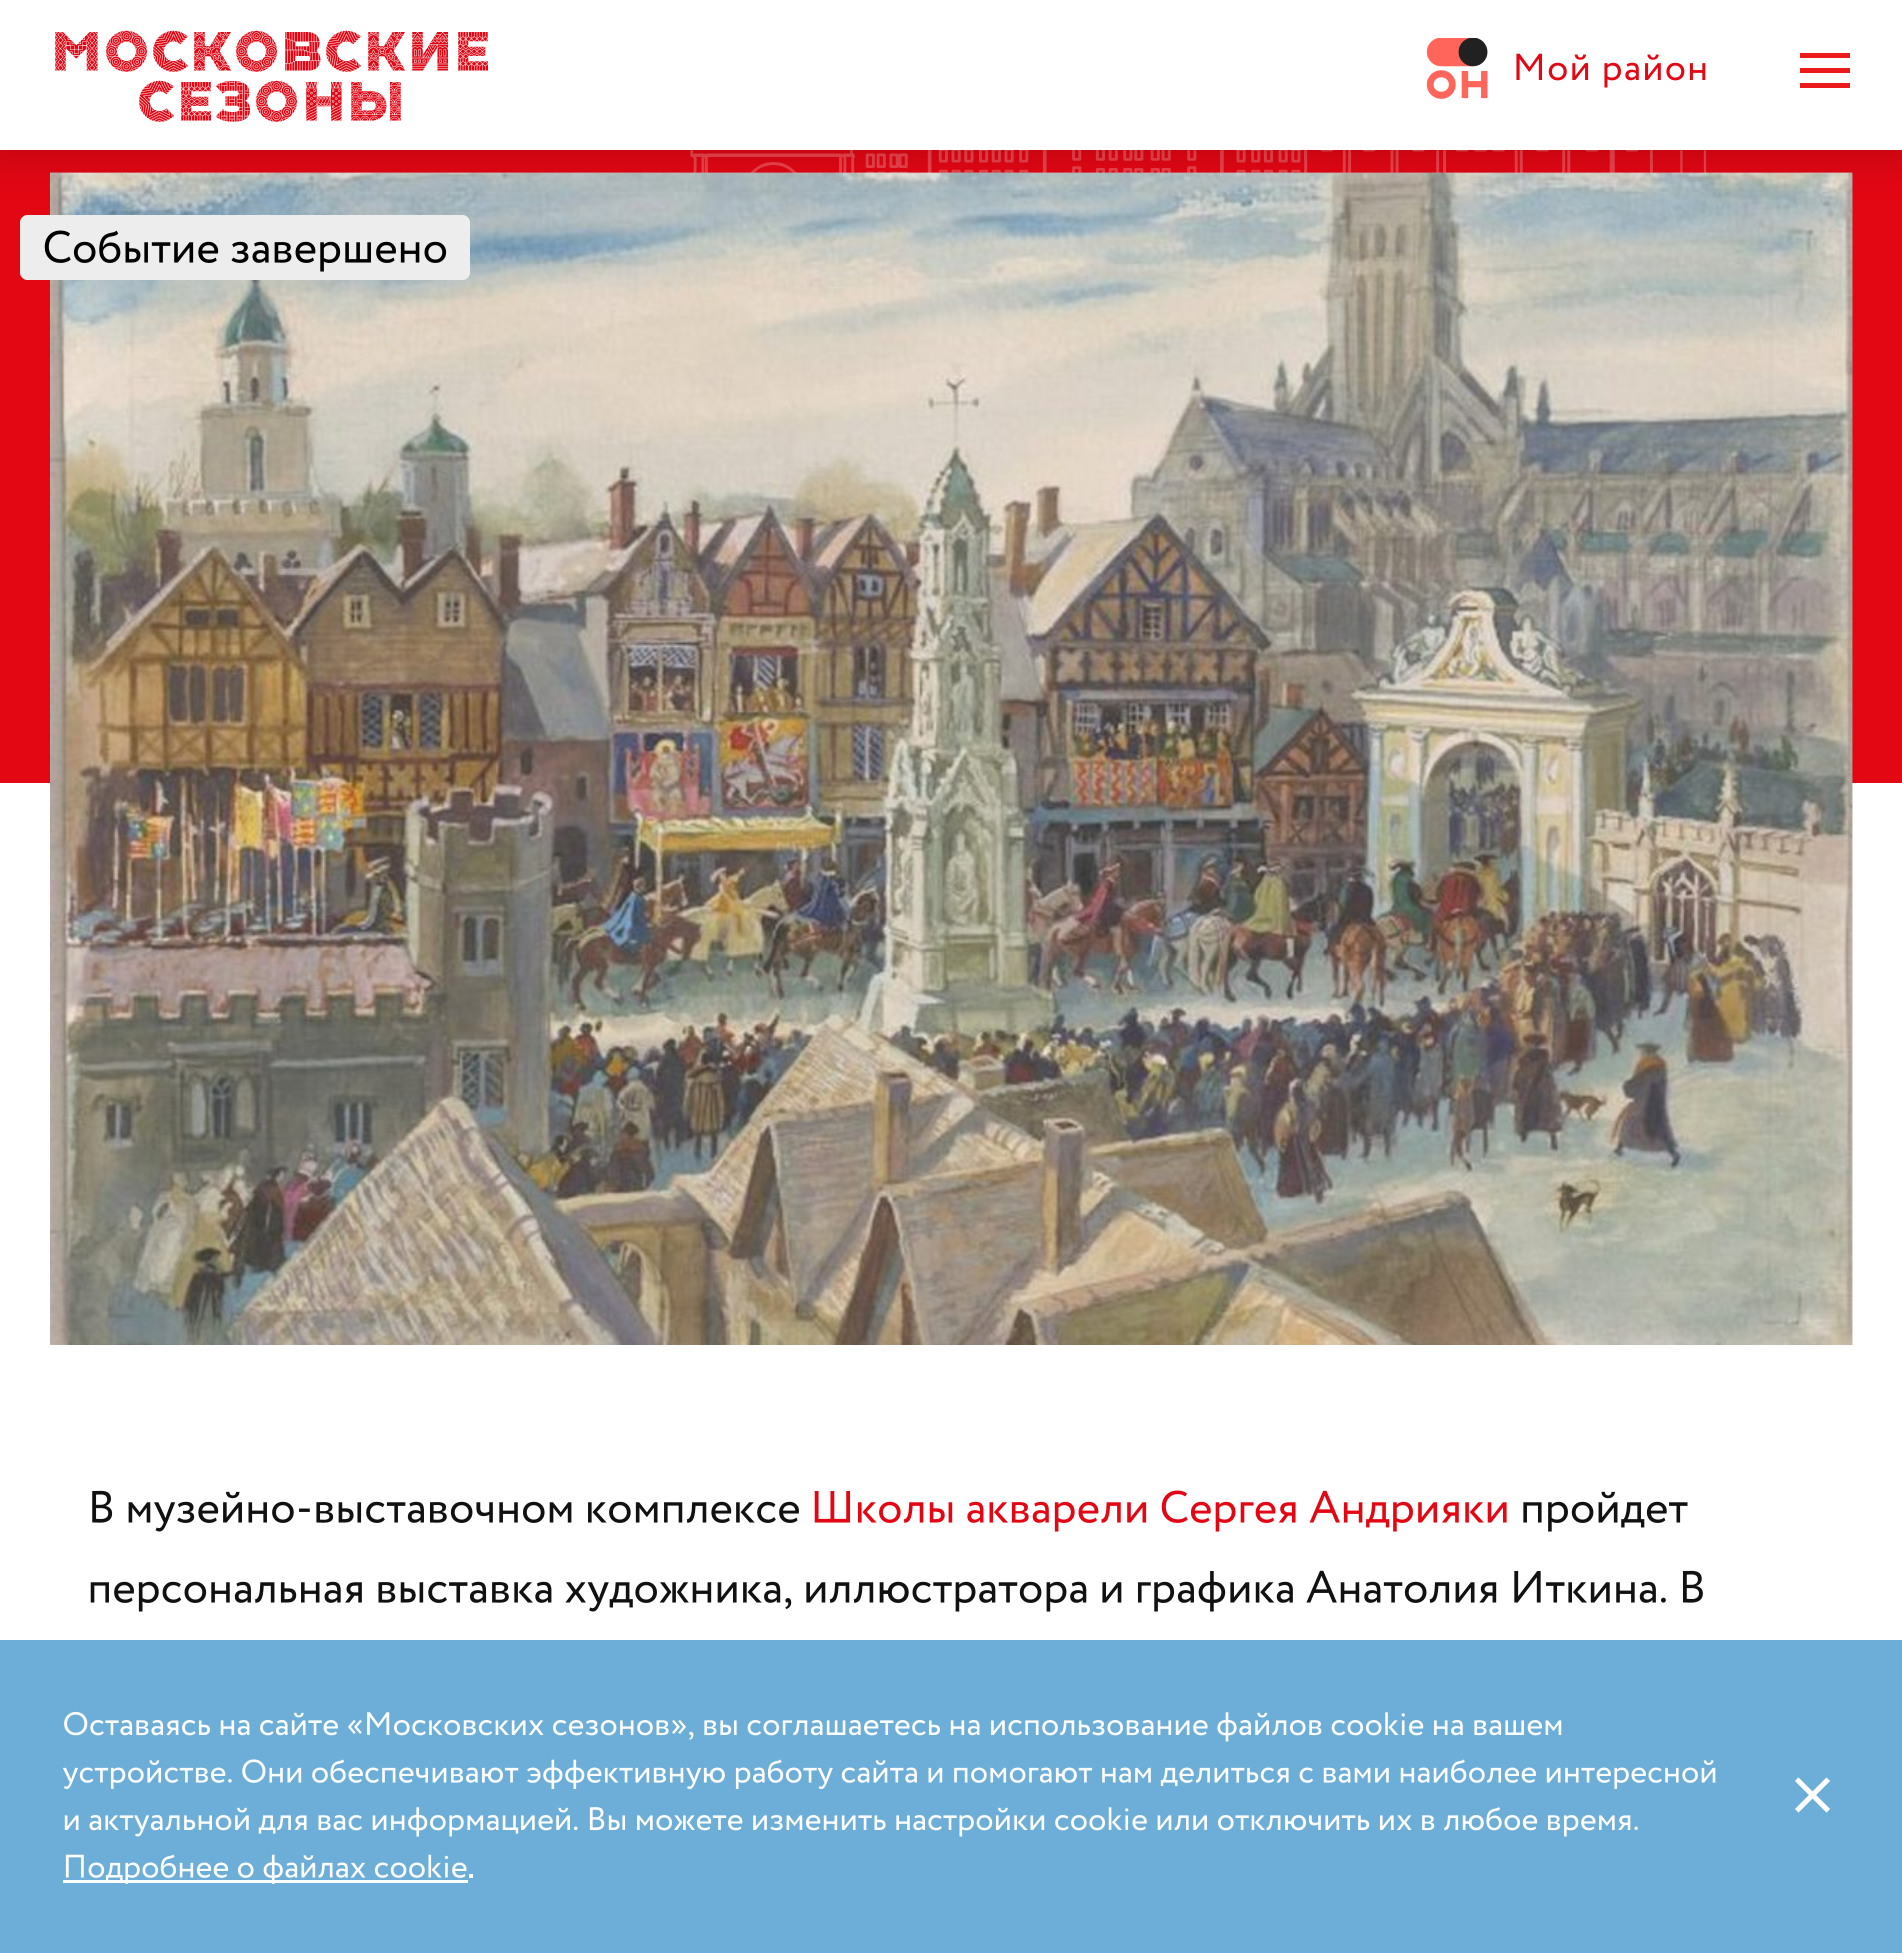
%!PS
<< /PageSize [1902 1953] /PageUsesTransparency true >> setpagedevice
/alpha { dup .setfillconstantalpha .setstrokeconstantalpha } def
/roundrect { 5 dict begin { /r /h /w /y /x } { exch def } forall
  x r add y moveto x w add y 2 copy h add r arct x w add y h add x 1 index r arct
  x y h add x y r arct x y 2 copy exch w add exch r arct closepath end } def
/shadow { 12 dict begin { /a /b /q /h /w /y /x } { exch def } forall gsave /was 0 def
  9 -2 -9 { dup b mul 4 div /e exch def 1 sub .425 mul 2.718 exch exp 1 add a .99 .min exch div /now exch def
    1 1 now sub 1 was sub div sub alpha /was now def
    w h .min e 2 mul add 0 gt { x e sub y e sub w e 2 mul add h e 2 mul add
      q e add b .6 mul add w h .min 2 div e add .min 0 .max roundrect fill } if } for grestore end } def
/picture { 5 dict begin { /h /w /y /x /name } { exch def } forall
  gsave x y translate w h scale
  w h 8 [w 0 0 h 0 0] name (r) file false 3 colorimage grestore end } def
0 .pushpdf14devicefilter
0 1953 translate 1 -1 scale
4 setmiterlimit
1 setgray
0 0 1902 1953 rectfill
0.89 0.024 0.075 setrgbcolor
0 150 1902 633 rectfill
(img3.rgb) 690 150 1017 23 picture
(img4.rgb) 50 172 1803 1173 picture
0.929 setgray
20 215 450 65 8 roundrect fill
0 setgray
0 8 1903 150 0 19 0.15 shadow
1 setgray
0 0 1902 150 rectfill
/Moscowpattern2-Regular [65 0 0 -65 0 0] selectfont
0.89 0.024 0.075 setrgbcolor
50 71 moveto (МОСКОВСКИЕ) show
136 121 moveto (СЕЗОНЫ) show
(img1.rgb) 1426 38 62 61 picture
(img2.rgb) 1516 53 190 35 picture
0.922 0.106 0.106 setrgbcolor
1800 53 50 5 rectfill
1800 68 50 5 rectfill
1800 83 50 5 rectfill
(img5.rgb) 44 230 403 42 picture
(img6.rgb) 92 1490 707 42 picture
(img7.rgb) 814 1490 693 42 picture
(img8.rgb) 1523 1491 165 41 picture
(img9.rgb) 90 1570 1613 42 picture
0.427 0.682 0.847 setrgbcolor
0 1640 1902 313 rectfill
(img10.rgb) 64 1711 1498 31 picture
(img11.rgb) 63 1759 1653 30 picture
(img12.rgb) 64 1807 1574 30 picture
1 setgray
63 1880 405 3 rectfill
(img13.rgb) 65 1854 402 30 picture
469 1874 4 4 rectfill
newpath 1798.5 1777.5 moveto 1830 1809 lineto 1826.5 1812.5 lineto 1795 1781 lineto closepath fill
newpath 1795 1809 moveto 1826.5 1777.5 lineto 1830 1781 lineto 1798.5 1812.5 lineto closepath fill
.poppdf14devicefilter showpage
